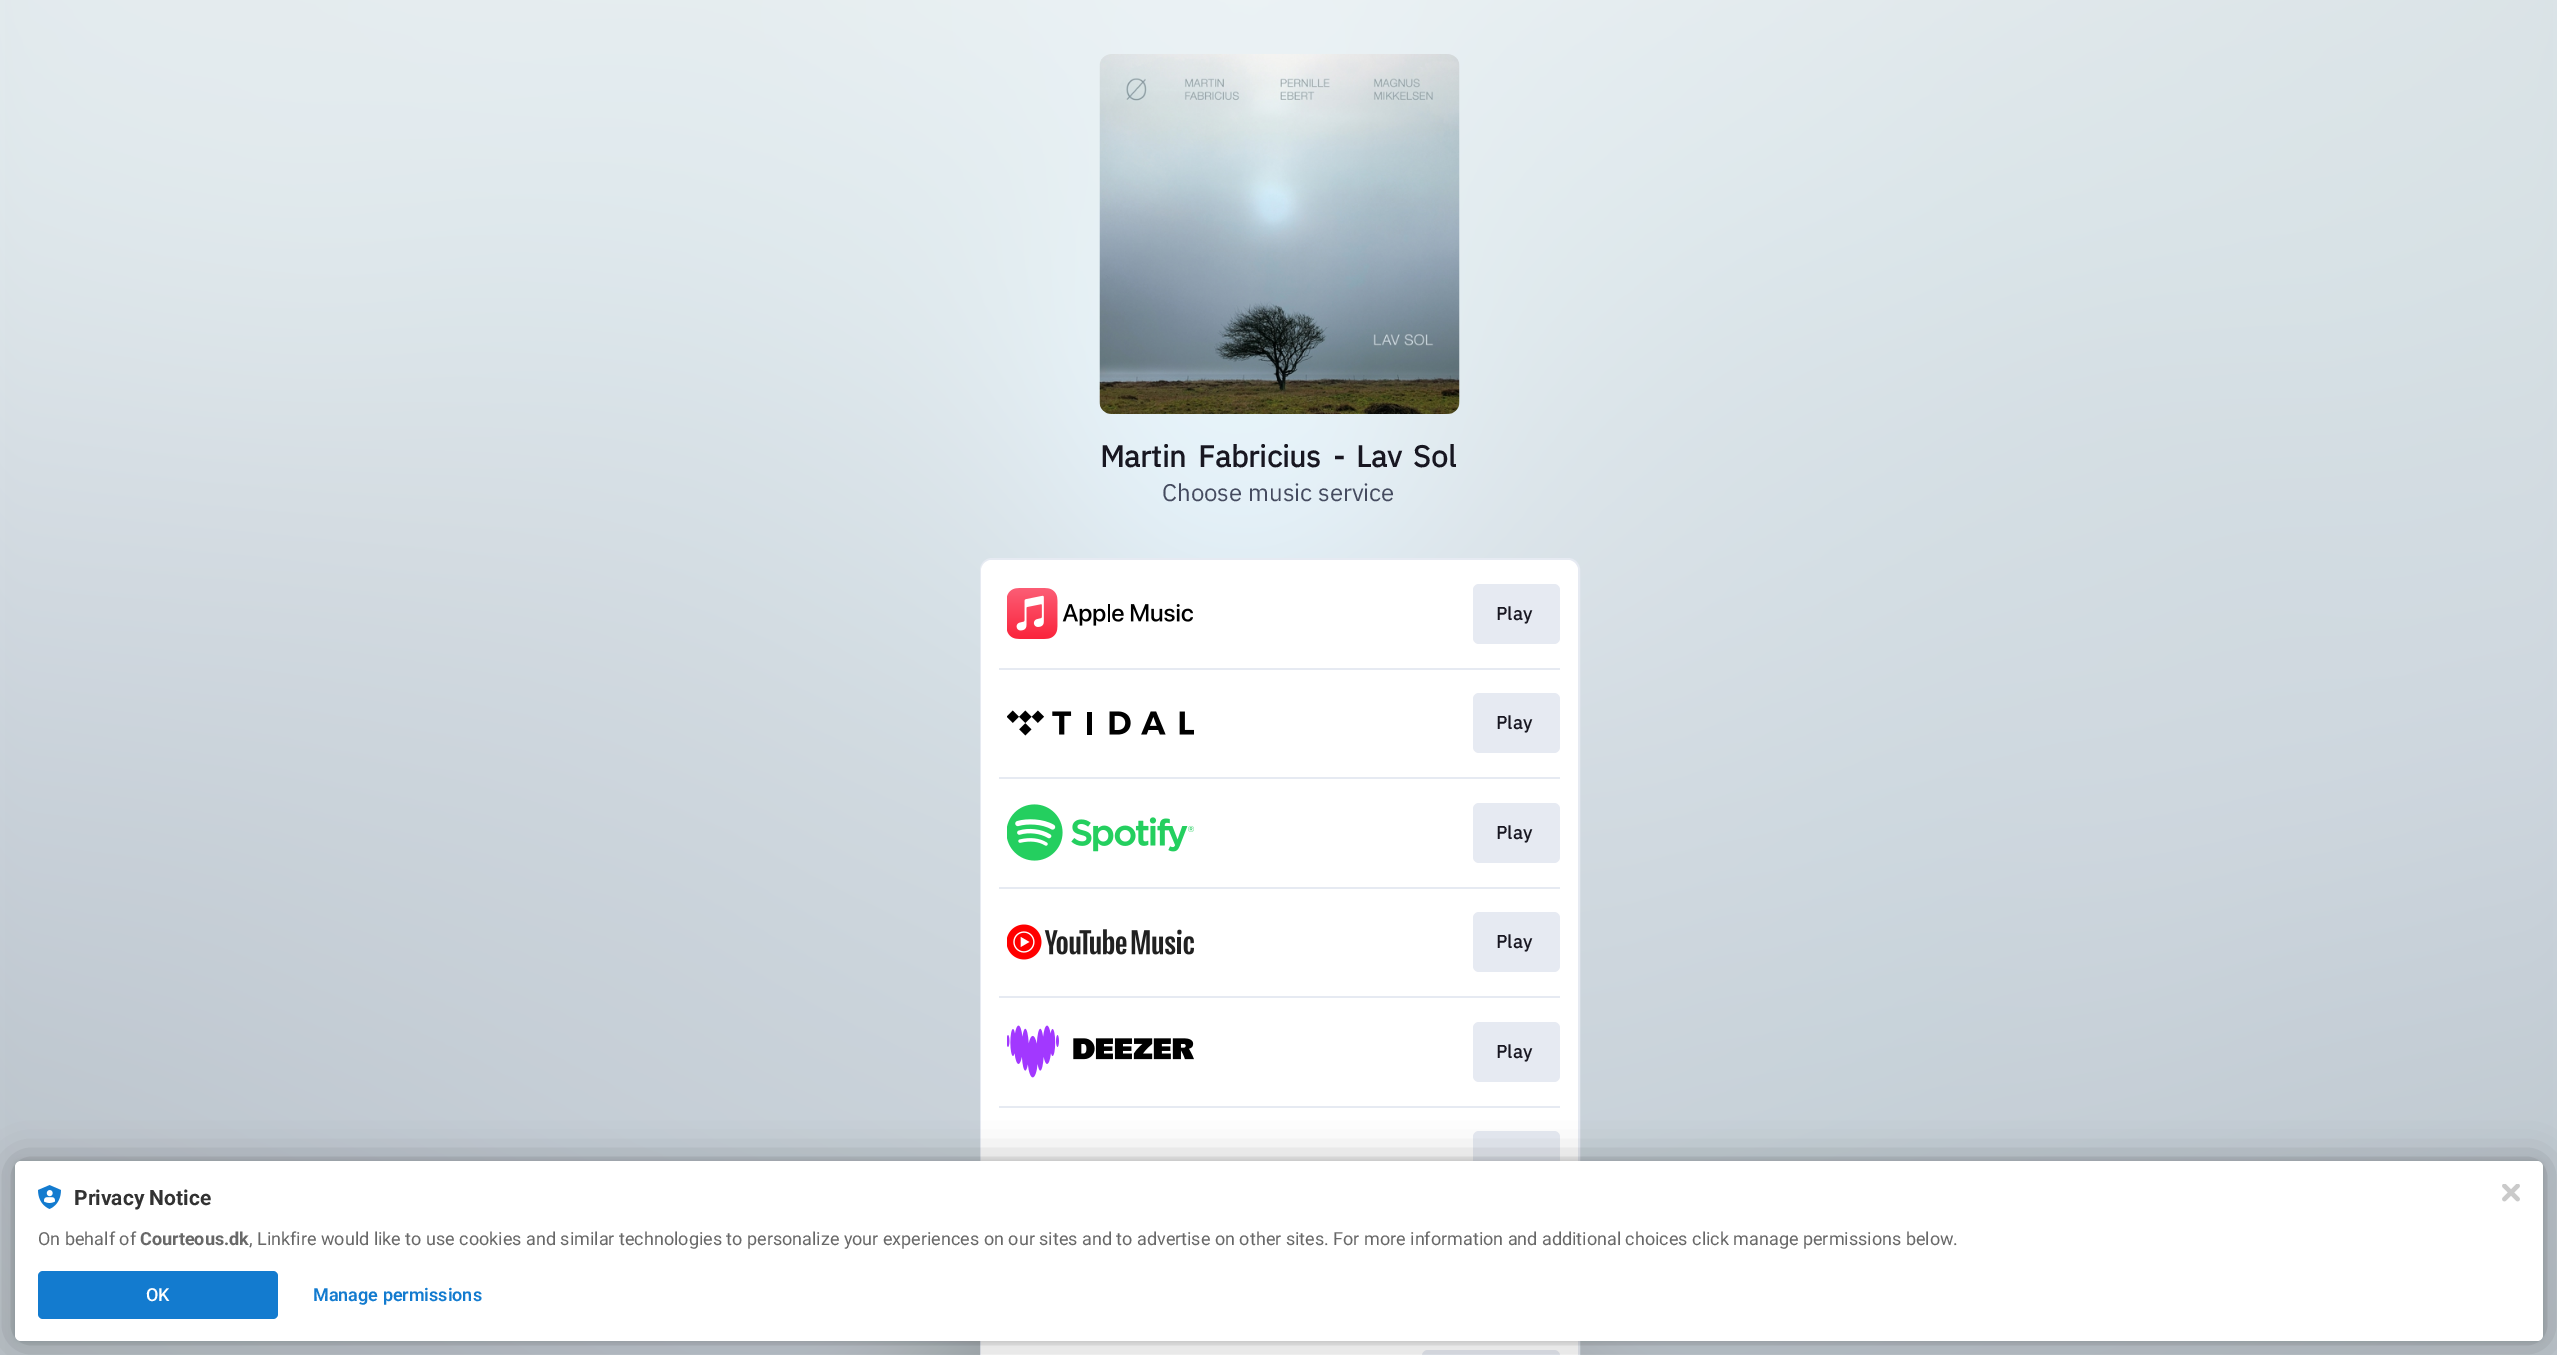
%!PS
<< /PageSize [2557 1355] /PageUsesTransparency true >> setpagedevice
/alpha { dup .setfillconstantalpha .setstrokeconstantalpha } def
/roundrect { 5 dict begin { /r /h /w /y /x } { exch def } forall
  x r add y moveto x w add y 2 copy h add r arct x w add y h add x 1 index r arct
  x y h add x y r arct x y 2 copy exch w add exch r arct closepath end } def
/shadow { 12 dict begin { /a /b /q /h /w /y /x } { exch def } forall gsave /was 0 def
  9 -2 -9 { dup b mul 4 div /e exch def 1 sub .425 mul 2.718 exch exp 1 add a .99 .min exch div /now exch def
    1 1 now sub 1 was sub div sub alpha /was now def
    w h .min e 2 mul add 0 gt { x e sub y e sub w e 2 mul add h e 2 mul add
      q e add b .6 mul add w h .min 2 div e add .min 0 .max roundrect fill } if } for grestore end } def
/picture { 5 dict begin { /h /w /y /x /name } { exch def } forall
  gsave x y translate w h scale
  w h 8 [w 0 0 h 0 0] name (r) file false 3 colorimage grestore end } def
0 .pushpdf14devicefilter
0 1355 translate 1 -1 scale
4 setmiterlimit
1 setgray
0 0 2557 1355 rectfill
(img1.rgb) 0 0 2557 1355 picture
(img2.rgb) 1099 54 361 360 picture
/IBMPlexSans-Bold [30 0 0 -30 0 0] selectfont
0.094 0.09 0.129 setrgbcolor
1100 467 moveto 4.5 0 32 (Martin Fabricius - Lav Sol) widthshow
/IBMPlexSans-Regular [24 0 0 -24 0 0] selectfont
0.271 0.294 0.373 setrgbcolor
1162 501 moveto (Choose music service) show
1 setgray
981 559 598 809 11 roundrect gsave fill grestore
0.902 0.918 0.949 setrgbcolor
2 setlinewidth
stroke
1 setgray
981 560 597 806 11 roundrect fill
(img3.rgb) 1007 588 186 51 picture
0.902 0.918 0.949 setrgbcolor
1473 584 87 60 6 roundrect fill
/IBMPlexSans-Bold [18 0 0 -18 0 0] selectfont
0.094 0.09 0.129 setrgbcolor
1496 620 moveto 0.5 0 (Play) ashow
0.902 0.918 0.949 setrgbcolor
999 668 561 2 rectfill
(img4.rgb) 1007 710 187 26 picture
1473 693 87 60 6 roundrect fill
0.094 0.09 0.129 setrgbcolor
1496 729 moveto 0.5 0 (Play) ashow
0.902 0.918 0.949 setrgbcolor
999 777 561 2 rectfill
(img5.rgb) 1007 804 187 57 picture
1473 803 87 60 6 roundrect fill
0.094 0.09 0.129 setrgbcolor
1496 839 moveto 0.5 0 (Play) ashow
0.902 0.918 0.949 setrgbcolor
999 887 561 2 rectfill
(img6.rgb) 1007 924 187 36 picture
1473 912 87 60 6 roundrect fill
0.094 0.09 0.129 setrgbcolor
1496 948 moveto 0.5 0 (Play) ashow
0.902 0.918 0.949 setrgbcolor
999 996 561 2 rectfill
(img7.rgb) 1007 1025 187 53 picture
1473 1022 87 60 6 roundrect fill
0.094 0.09 0.129 setrgbcolor
1496 1058 moveto 0.5 0 (Play) ashow
0.902 0.918 0.949 setrgbcolor
999 1106 561 2 rectfill
1473 1131 87 60 6 roundrect fill
1422 1350 138 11 6 roundrect fill
0 setgray
15 1161 2528 180 6 3 0.12 shadow
15 1161 2528 180 6 18 0.3 shadow
1 setgray
15 1161 2528 180 6 roundrect fill
(img8.rgb) 38 1185 23 24 picture
/Roboto-Bold [21 0 0 -21 0 0] selectfont
0.196 setgray
74 1205 moveto (Privacy Notice) show
/Roboto-Regular [18 0 0 -18 0 0] selectfont
0.408 setgray
38 1245 moveto (On behalf of) show
/Roboto-Bold [18 0 0 -18 0 0] selectfont
140 1245 moveto (Courteous.dk) show
/Roboto-Regular [18 0 0 -18 0 0] selectfont
249 1245 moveto (, Linkfire would like to use cookies and similar technologies to personalize your experiences on our sites and to advertise on other sites. For more information and additional choices click manage permissions below.) show
0.075 0.482 0.812 setrgbcolor
38 1271 240 48 5 roundrect fill
/Roboto-Medium [18 0 0 -18 0 0] selectfont
1 setgray
146 1301 moveto (OK) show
/Roboto-SemiBold [18 0 0 -18 0 0] selectfont
0.075 0.482 0.812 setrgbcolor
313 1301 moveto (Manage permissions) show
(img9.rgb) 2502 1184 18 18 picture
.poppdf14devicefilter showpage
